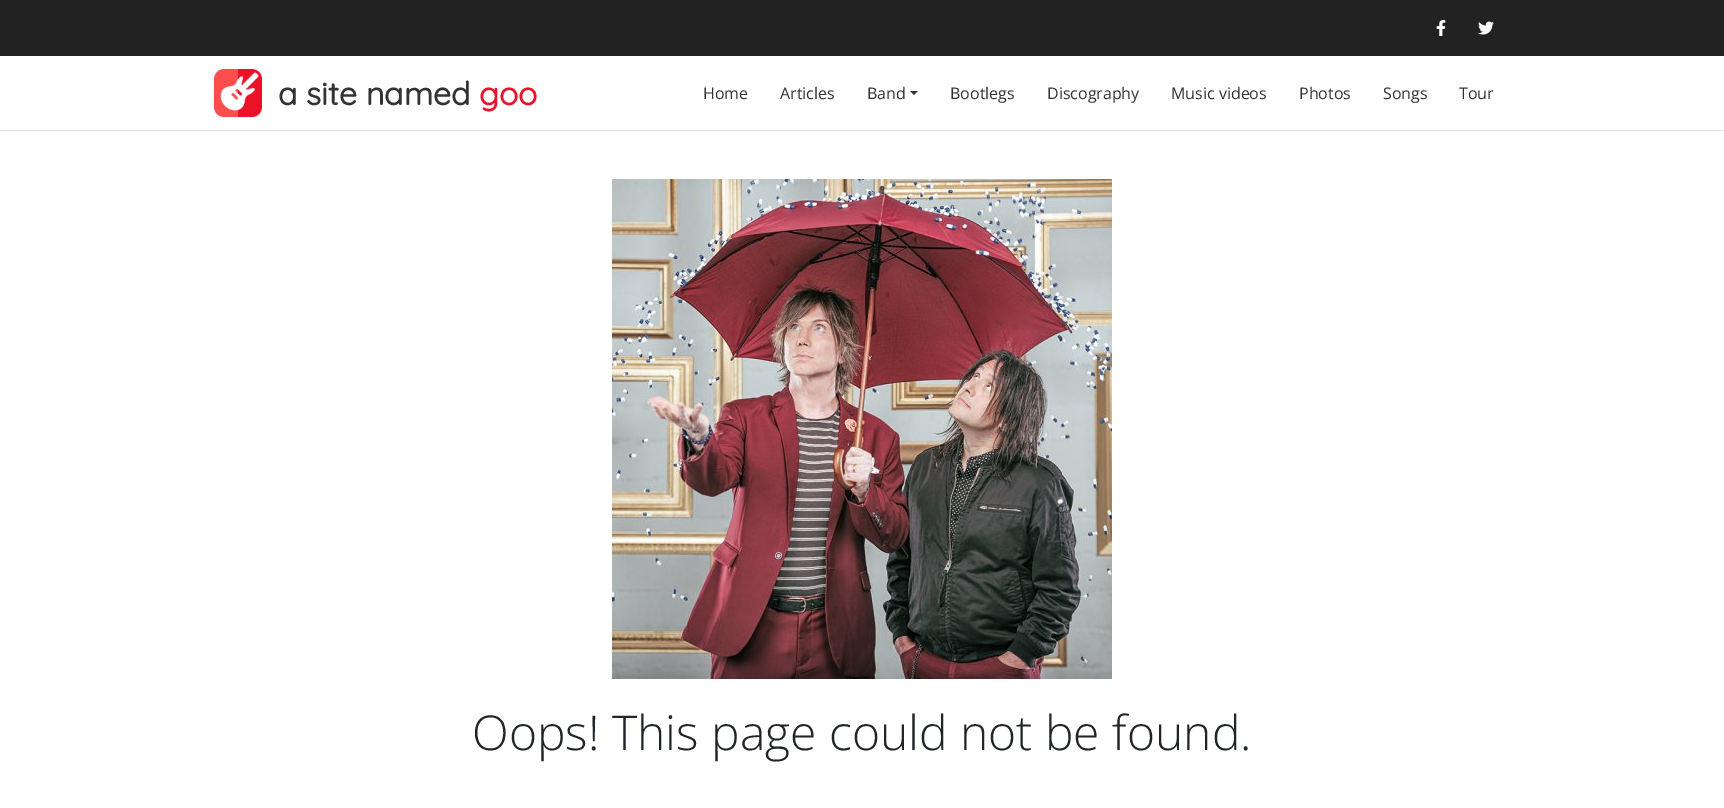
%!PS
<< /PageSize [1724 808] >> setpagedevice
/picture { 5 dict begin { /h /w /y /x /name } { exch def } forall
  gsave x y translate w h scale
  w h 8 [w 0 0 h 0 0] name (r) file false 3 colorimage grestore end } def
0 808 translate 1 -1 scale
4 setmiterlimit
1 setgray
0 0 1724 808 rectfill
0.133 setgray
0 0 1724 56 rectfill
(img1.rgb) 1436 20 10 16 picture
(img2.rgb) 1478 21 16 14 picture
0.871 0.886 0.902 setrgbcolor
0 130 1724 1 rectfill
(img3.rgb) 214 69 48 48 picture
/Quicksand-Bold [32 0 0 -32 0 0] selectfont
0.2 setgray
278 105 moveto (a site named) show
0.922 0.067 0.161 setrgbcolor
479 105 moveto (goo) show
/OpenSans-Regular [16 0 0 -16 0 0] selectfont
0.2 setgray
703 99 moveto (Home) show
780 99 moveto (Articles) show
867 99 moveto (Band) show
newpath 910 91 moveto 918 91 lineto 914 95 lineto closepath fill
950 99 moveto (Bootlegs) show
1047 99 moveto (Discography) show
1171 99 moveto (Music videos) show
1299 99 moveto (Photos) show
1383 99 moveto (Songs) show
1459 99 moveto (Tour) show
(img4.rgb) 612 179 500 500 picture
/OpenSans-Light [48 0 0 -48 0 0] selectfont
0.129 0.145 0.161 setrgbcolor
472 750 moveto (Oops! This page could not be found.) show
showpage
